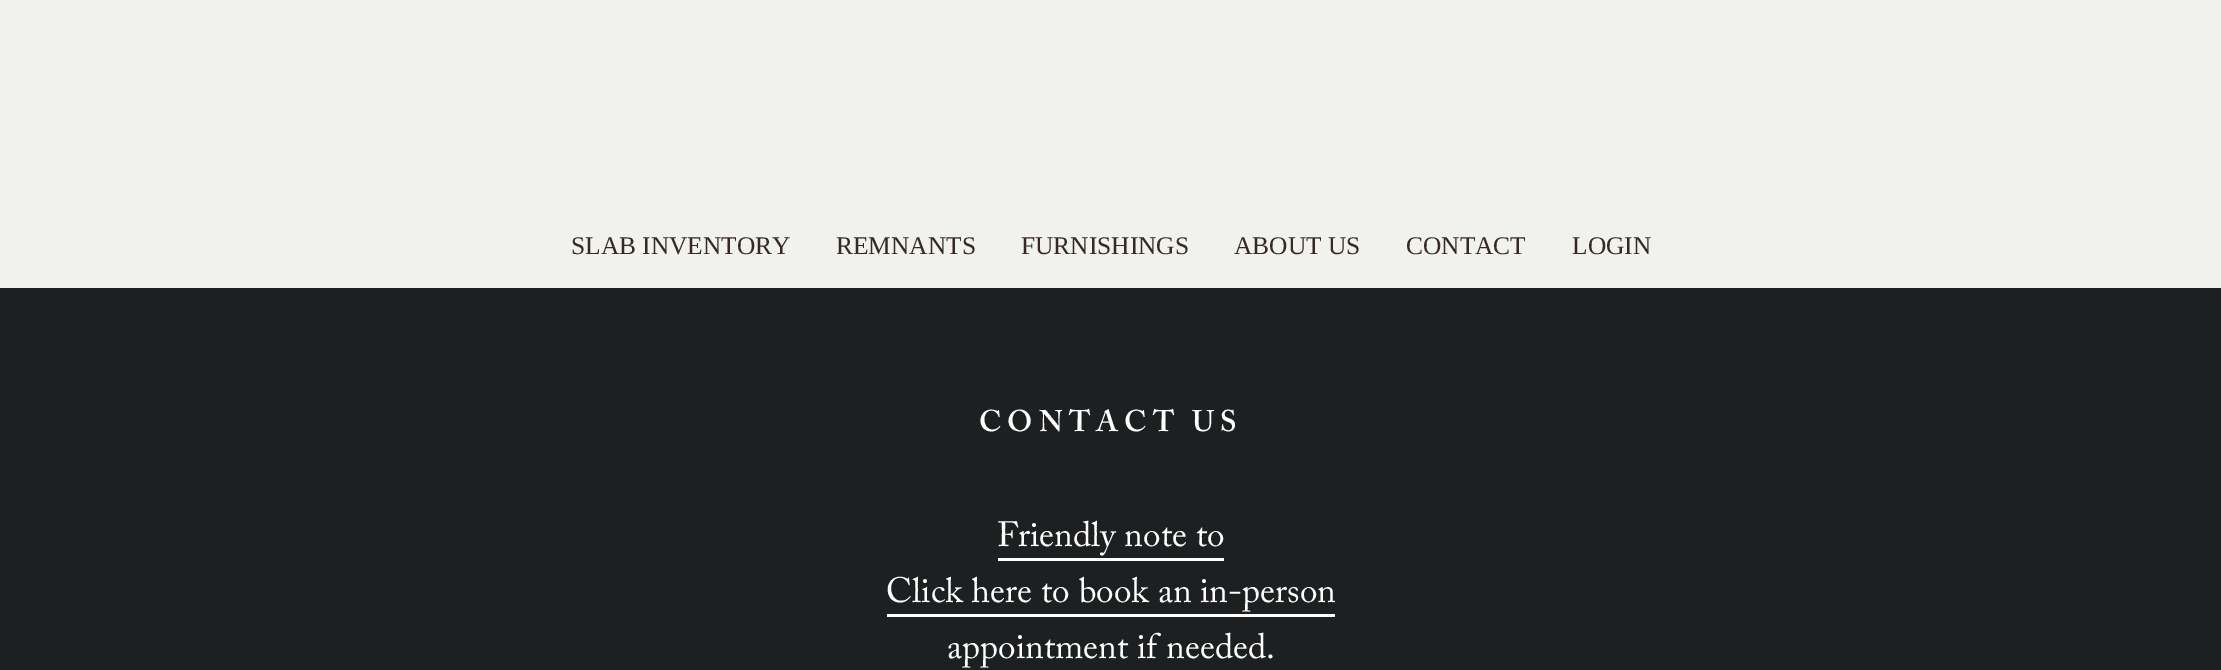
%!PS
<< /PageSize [2221 670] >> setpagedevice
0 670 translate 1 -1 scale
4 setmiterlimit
0.945 0.945 0.929 setrgbcolor
0 0 2221 670 rectfill
/LiberationSerif-Regular [25.4 0 0 -25.4 0 0] selectfont
0.216 0.161 0.129 setrgbcolor
571 254 moveto (SLAB INVENTORY) show
836 254 moveto (REMNANTS) show
1021 254 moveto (FURNISHINGS) show
1234 254 moveto (ABOUT US) show
1406 254 moveto (CONTACT) show
1572 254 moveto (LOGIN) show
0.114 0.122 0.125 setrgbcolor
0 288 2221 382 rectfill
/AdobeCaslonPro-SemiBold [29.75 0 0 -29.75 0 0] selectfont
1 setgray
979 431 moveto 6 0 (CONTACT US) ashow
/AdobeCaslonPro-Regular [35.1 0 0 -35.1 0 0] selectfont
997 546 moveto (Friendly note to) show
998 558 226 3 rectfill
886 602 moveto (Click here to book an in-person) show
887 614 448 3 rectfill
947 658 moveto (appointment if needed.) show
showpage
